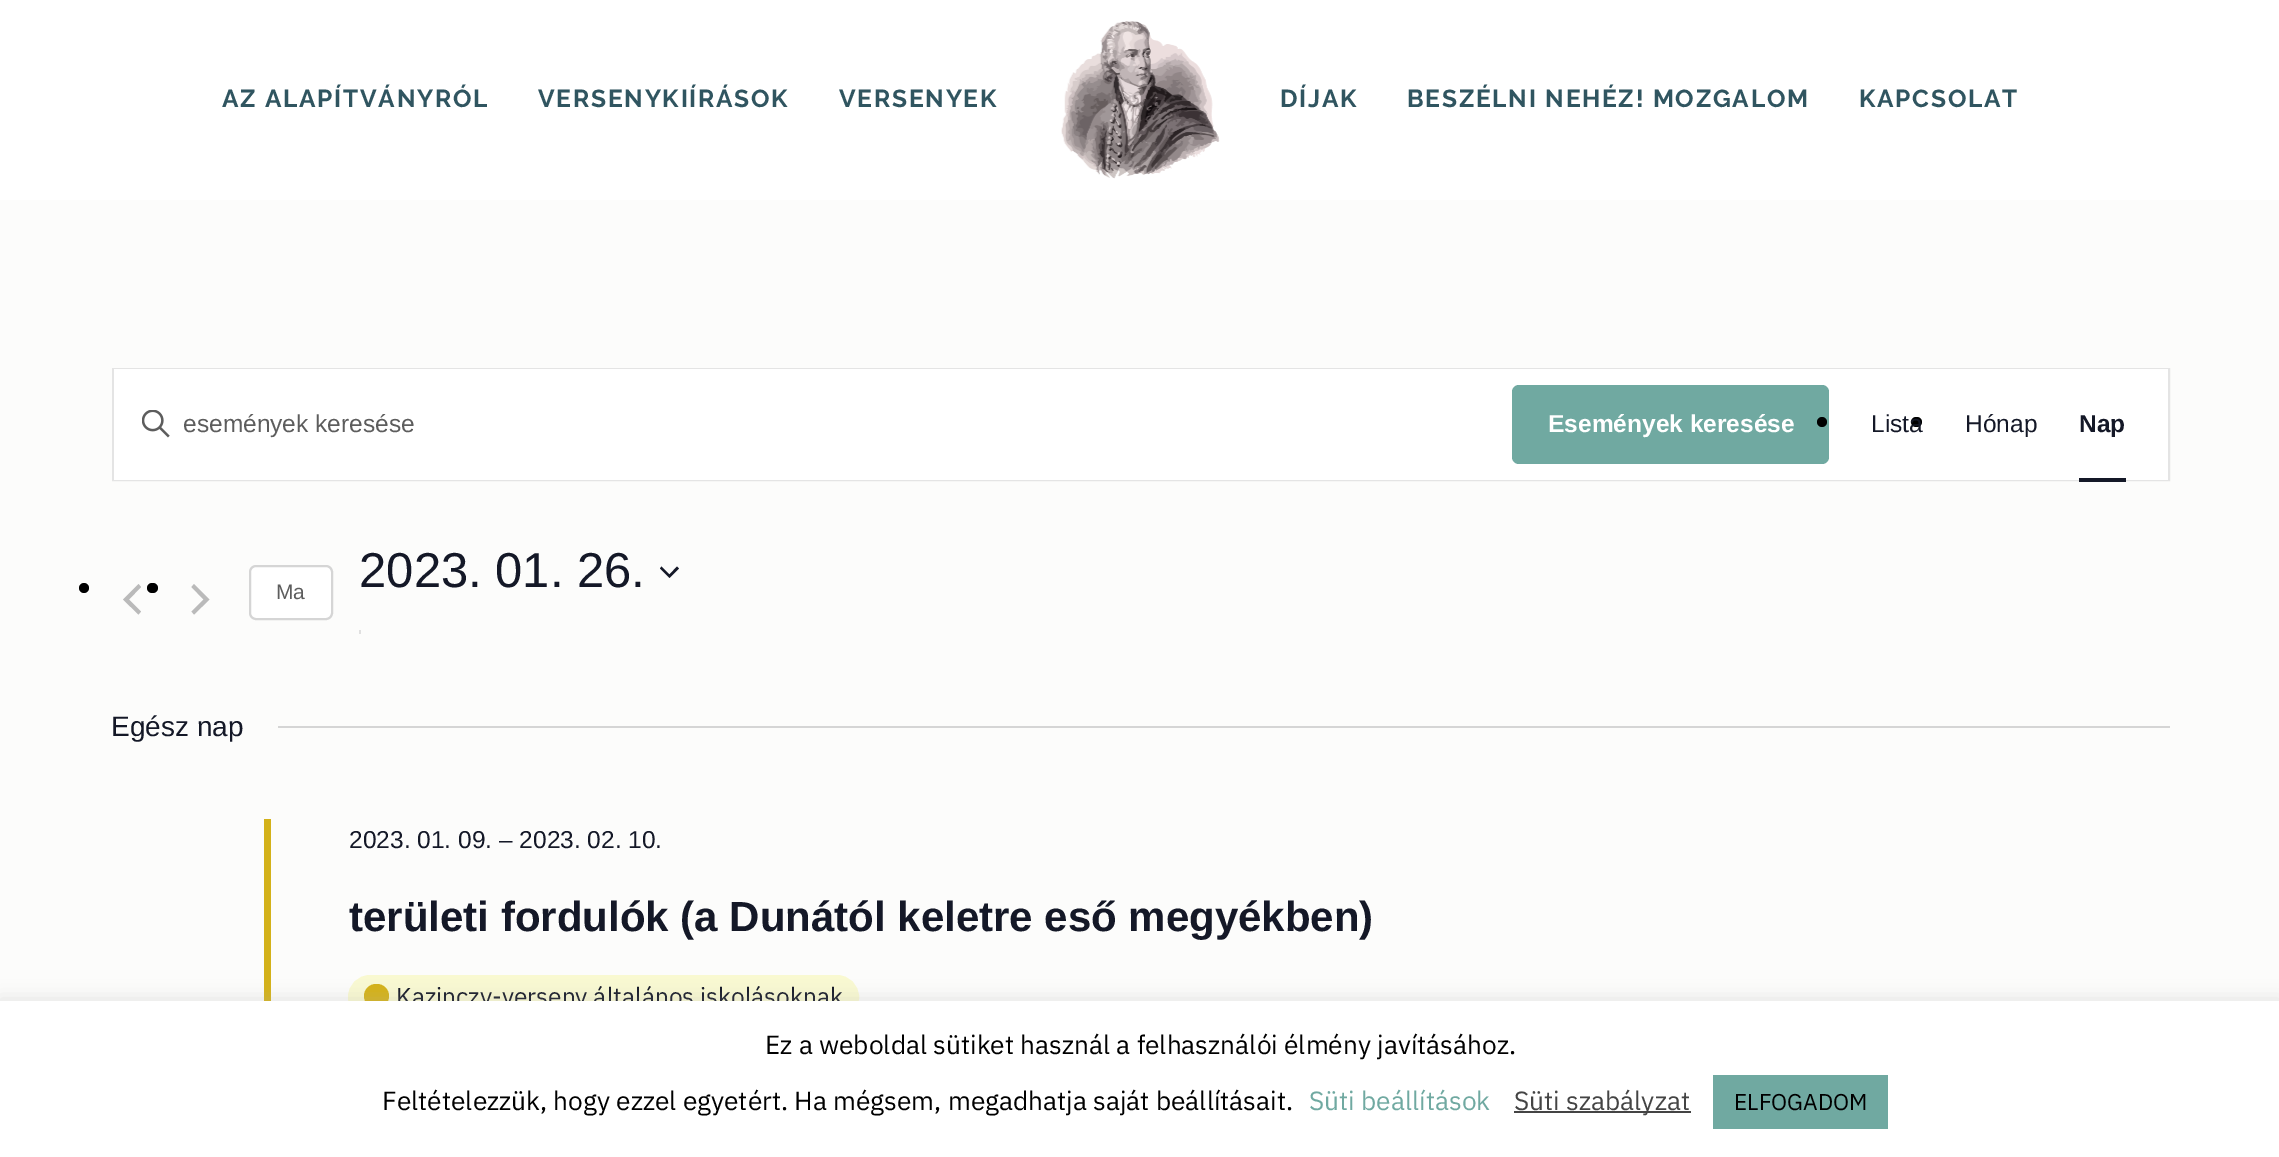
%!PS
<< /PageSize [2279 1157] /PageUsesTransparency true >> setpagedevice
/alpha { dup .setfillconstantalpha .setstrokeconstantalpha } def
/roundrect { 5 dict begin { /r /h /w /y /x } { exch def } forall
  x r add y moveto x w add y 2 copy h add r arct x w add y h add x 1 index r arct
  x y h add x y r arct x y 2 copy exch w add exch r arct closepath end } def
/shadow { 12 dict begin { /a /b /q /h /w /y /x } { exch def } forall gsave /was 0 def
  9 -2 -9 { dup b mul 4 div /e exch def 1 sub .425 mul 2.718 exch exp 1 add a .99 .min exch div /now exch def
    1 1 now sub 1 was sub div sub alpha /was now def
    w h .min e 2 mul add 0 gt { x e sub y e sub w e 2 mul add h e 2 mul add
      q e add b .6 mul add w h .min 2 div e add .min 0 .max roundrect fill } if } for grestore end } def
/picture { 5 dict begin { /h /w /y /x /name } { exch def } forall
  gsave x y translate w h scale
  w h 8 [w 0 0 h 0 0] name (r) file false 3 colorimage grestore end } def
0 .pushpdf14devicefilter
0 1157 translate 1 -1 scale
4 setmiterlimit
0.988 0.988 0.984 setrgbcolor
0 0 2279 1157 rectfill
1 setgray
0 0 2279 200 rectfill
(img1.rgb) 1061 21 159 158 picture
/Raleway-Bold [24.5 0 0 -24.5 0 0] selectfont
0.188 0.333 0.376 setrgbcolor
222 107 moveto 1.75 0 (AZ ALAPÍTVÁNYRÓL) ashow
538 107 moveto 1.75 0 (VERSENYKIÍRÁSOK) ashow
839 107 moveto 1.75 0 (VERSENYEK) ashow
1280 107 moveto 1.75 0 (DÍJAK) ashow
1407 107 moveto 1.75 0 (BESZÉLNI NEHÉZ! MOZGALOM) ashow
1859 107 moveto 1.75 0 (KAPCSOLAT) ashow
0.894 setgray
2 setlinewidth
113 369 2056 111 rectstroke
1 setgray
114 369 2054 111 rectfill
(img2.rgb) 142 410 28 28 picture
/LiberationSans-Regular [24.5 0 0 -24.5 0 0] selectfont
0.365 setgray
183 432 moveto (események keresése) show
0.439 0.663 0.631 setrgbcolor
1512 385 317 79 7 roundrect fill
/LiberationSans-Bold [24.5 0 0 -24.5 0 0] selectfont
1 setgray
1548 432 moveto (Események keresése) show
0 setgray
newpath 1822 422 5 0 360 arc closepath fill
1911 417 11 10 5 roundrect fill
/LiberationSans-Regular [24.5 0 0 -24.5 0 0] selectfont
0.078 0.094 0.153 setrgbcolor
1871 432 moveto (Lista) show
1965 432 moveto (Hónap) show
/LiberationSans-Bold [24.5 0 0 -24.5 0 0] selectfont
2079 432 moveto (Nap) show
2079 478 47 4 rectfill
/LiberationSans-Regular [49 0 0 -49 0 0] selectfont
359 587 moveto (2023. 01. 26.) show
newpath 661.5 566.5 moveto 669.5 574.5 lineto 677 566.5 lineto 679 568.5 lineto 669.5 578 lineto 660 568.5 lineto closepath eofill
0.878 setgray
359 630 2 4 rectfill
0 setgray
newpath 84 588 5 0 360 arc closepath fill
0.729 setgray
newpath 141 611.5 moveto 138.5 614.5 lineto 123 599.5 lineto 138.5 584 lineto 141 587 lineto 129 599.5 lineto closepath fill
0 setgray
147 583 11 10 5 roundrect fill
0.729 setgray
newpath 191.5 587 moveto 194 584 lineto 209.5 599.5 lineto 194 614.5 lineto 191.5 611.5 lineto 203.5 599.5 lineto closepath fill
1 setgray
250 566 82 53 6 roundrect gsave fill grestore
0.835 setgray
stroke
/LiberationSans-Regular [21 0 0 -21 0 0] selectfont
0.365 setgray
276 599 moveto (Ma) show
/LiberationSans-Regular [28 0 0 -28 0 0] selectfont
0.078 0.094 0.153 setrgbcolor
111 736 moveto (Egész nap) show
0.835 setgray
278 726 1892 2 rectfill
0.827 0.694 0.098 setrgbcolor
264 819 7 182 rectfill
/LiberationSans-Regular [24.5 0 0 -24.5 0 0] selectfont
0.078 0.094 0.153 setrgbcolor
349 848 moveto (2023. 01. 09. – 2023. 02. 10.) show
/LiberationSans-Bold [42 0 0 -42 0 0] selectfont
349 931 moveto (területi fordulók \(a Dunától keletre eső megyékben\)) show
0.976 0.976 0.82 setrgbcolor
349 976 509 42 21 roundrect gsave fill grestore
stroke
0.827 0.694 0.098 setrgbcolor
364 984 25 24 12 roundrect fill
/IBMPlexSans-Regular [24.5 0 0 -24.5 0 0] selectfont
0.078 0.094 0.153 setrgbcolor
396 1005 moveto (Kazinczy-verseny általános iskolásoknak) show
0.675 0.671 0.671 setrgbcolor
0 999 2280 158 0 9 0.3 shadow
1 setgray
0 1001 2279 156 rectfill
/IBMPlexSans-Regular [26.25 0 0 -26.25 0 0] selectfont
0 setgray
765 1054 moveto (Ez a weboldal sütiket használ a felhasználói élmény javításához.) show
382 1110 moveto (Feltételezzük, hogy ezzel egyetért. Ha mégsem, megadhatja saját beállításait.) show
0.439 0.663 0.631 setrgbcolor
1309 1110 moveto (Süti beállítások) show
0.267 setgray
1514 1111 177 2 rectfill
1514 1110 moveto (Süti szabályzat) show
0.439 0.663 0.631 setrgbcolor
1713 1075 175 54 rectfill
/IBMPlexSans-Regular [22.75 0 0 -22.75 0 0] selectfont
0 setgray
1734 1110 moveto (ELFOGADOM) show
.poppdf14devicefilter showpage
